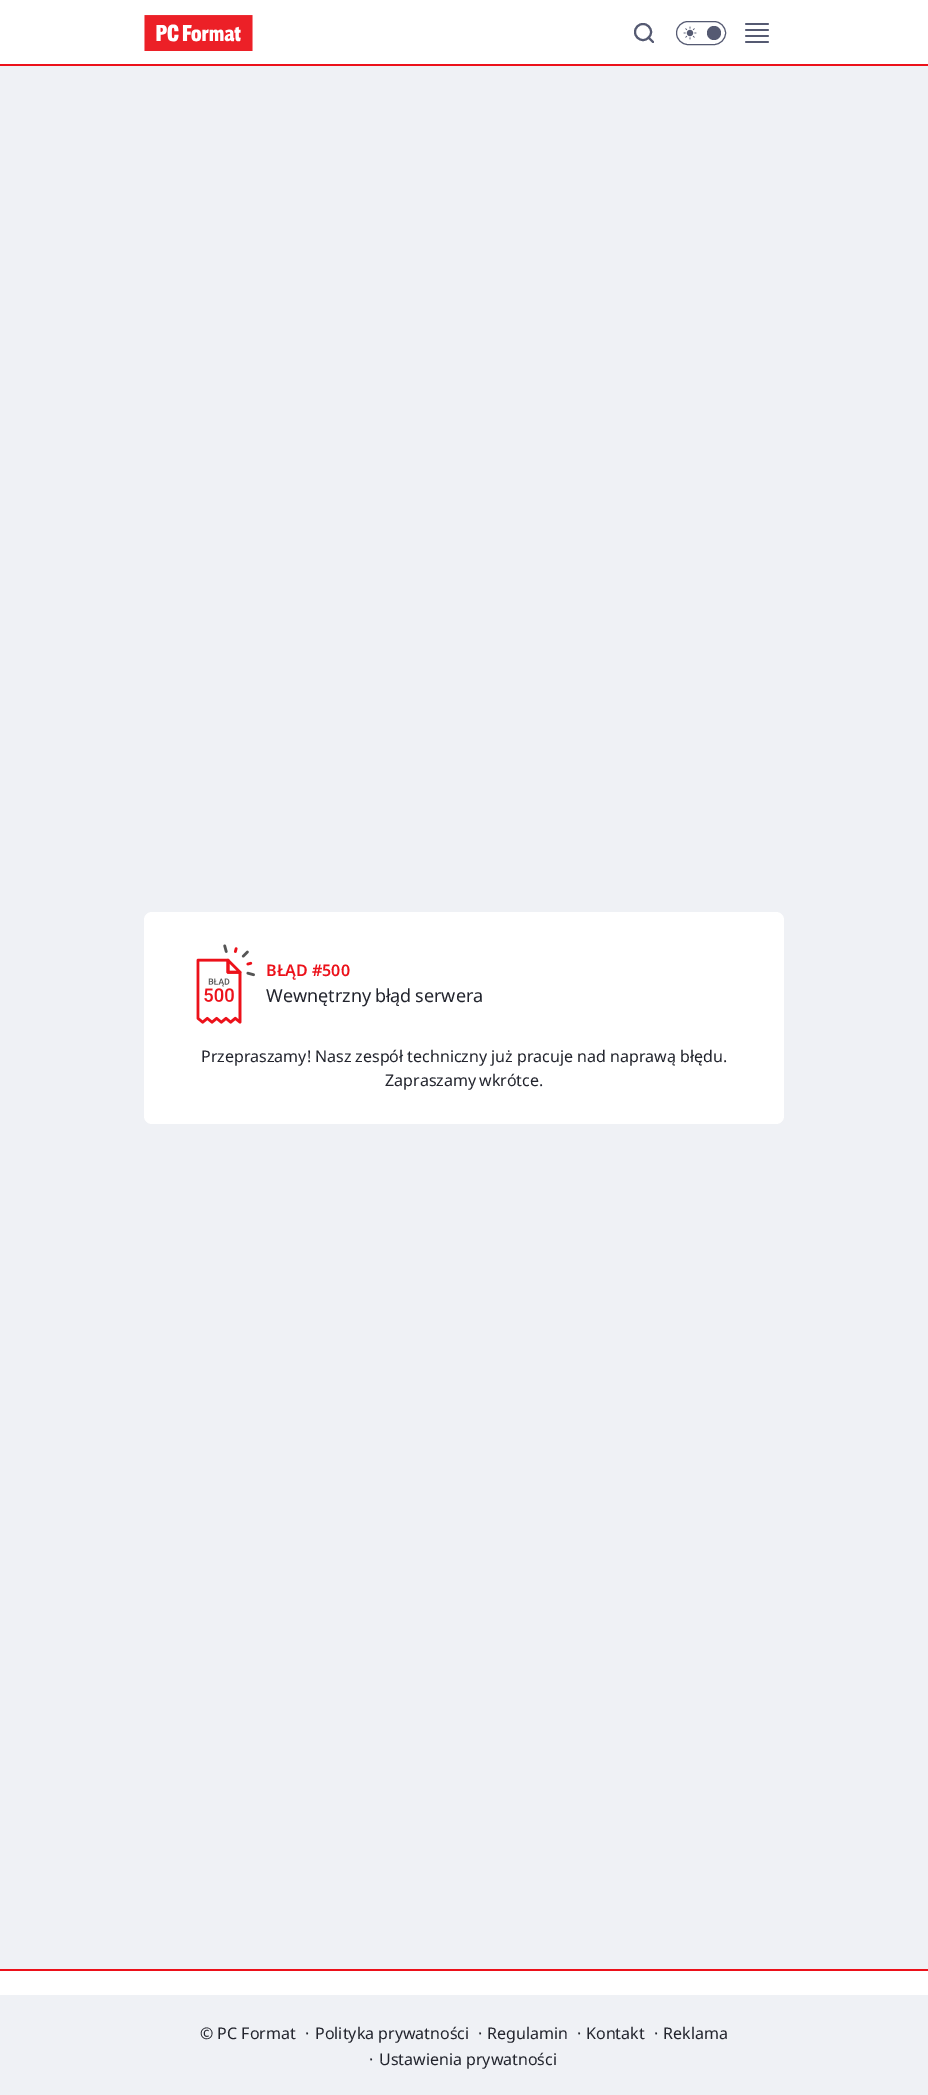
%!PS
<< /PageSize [928 2095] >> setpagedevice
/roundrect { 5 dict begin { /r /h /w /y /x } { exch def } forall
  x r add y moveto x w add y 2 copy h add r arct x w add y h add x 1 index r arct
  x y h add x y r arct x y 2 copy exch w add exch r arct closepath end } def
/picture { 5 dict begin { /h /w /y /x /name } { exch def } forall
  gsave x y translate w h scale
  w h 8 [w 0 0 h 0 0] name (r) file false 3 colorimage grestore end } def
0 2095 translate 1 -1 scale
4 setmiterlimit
0.937 0.945 0.961 setrgbcolor
0 0 928 2095 rectfill
1 setgray
0 0 928 64 rectfill
(img1.rgb) 144 15 109 36 picture
0.333 0.353 0.447 setrgbcolor
2 setlinewidth
newpath 643 32 8 0 360 arc closepath stroke
1 setlinecap
1 setlinejoin
newpath 653 42 moveto 648.5 37.5 lineto stroke
1 setlinewidth
0 setlinecap
0 setlinejoin
676.5 21.5 49 23 11.5 roundrect stroke
(img2.rgb) 683 26 14 14 picture
newpath 714 33 7 0 360 arc closepath fill
1.8 setlinewidth
1 setlinecap
1 setlinejoin
newpath 746 36 moveto 768 36 lineto 746 30 moveto 768 30 lineto 746 24 moveto 768 24 lineto 746 42 moveto 768 42 lineto stroke
0.925 0.067 0.102 setrgbcolor
0 64 928 2 rectfill
1 setgray
144 912 640 212 8 roundrect fill
(img3.rgb) 196 944 59 80 picture
/NotoSans-SemiBold [16 0 0 -16 0 0] selectfont
0.925 0.067 0.102 setrgbcolor
266 976 moveto (BŁĄD #500) show
/NotoSans-Regular [18 0 0 -18 0 0] selectfont
0.133 0.141 0.176 setrgbcolor
266 1002 moveto -1 0 32 (Wewnętrzny błąd serwera) widthshow
/NotoSans-Regular [16 0 0 -16 0 0] selectfont
201 1062 moveto (Przepraszamy! Nasz zespół techniczny już pracuje nad naprawą błędu.) show
385 1086 moveto -1 0 32 (Zapraszamy wkrótce.) widthshow
1 setgray
0 1971 928 24 rectfill
0.925 0.067 0.102 setrgbcolor
0 1969 928 2 rectfill
0.133 0.141 0.176 setrgbcolor
200 2039 moveto (© PC Format) show
305 2039 moveto (·) show
315 2039 moveto (Polityka prywatności) show
478 2039 moveto (·) show
487 2039 moveto (Regulamin) show
577 2039 moveto (·) show
586 2039 moveto (Kontakt) show
654 2039 moveto (·) show
663 2039 moveto (Reklama) show
369 2065 moveto (·) show
379 2065 moveto (Ustawienia prywatności) show
showpage
